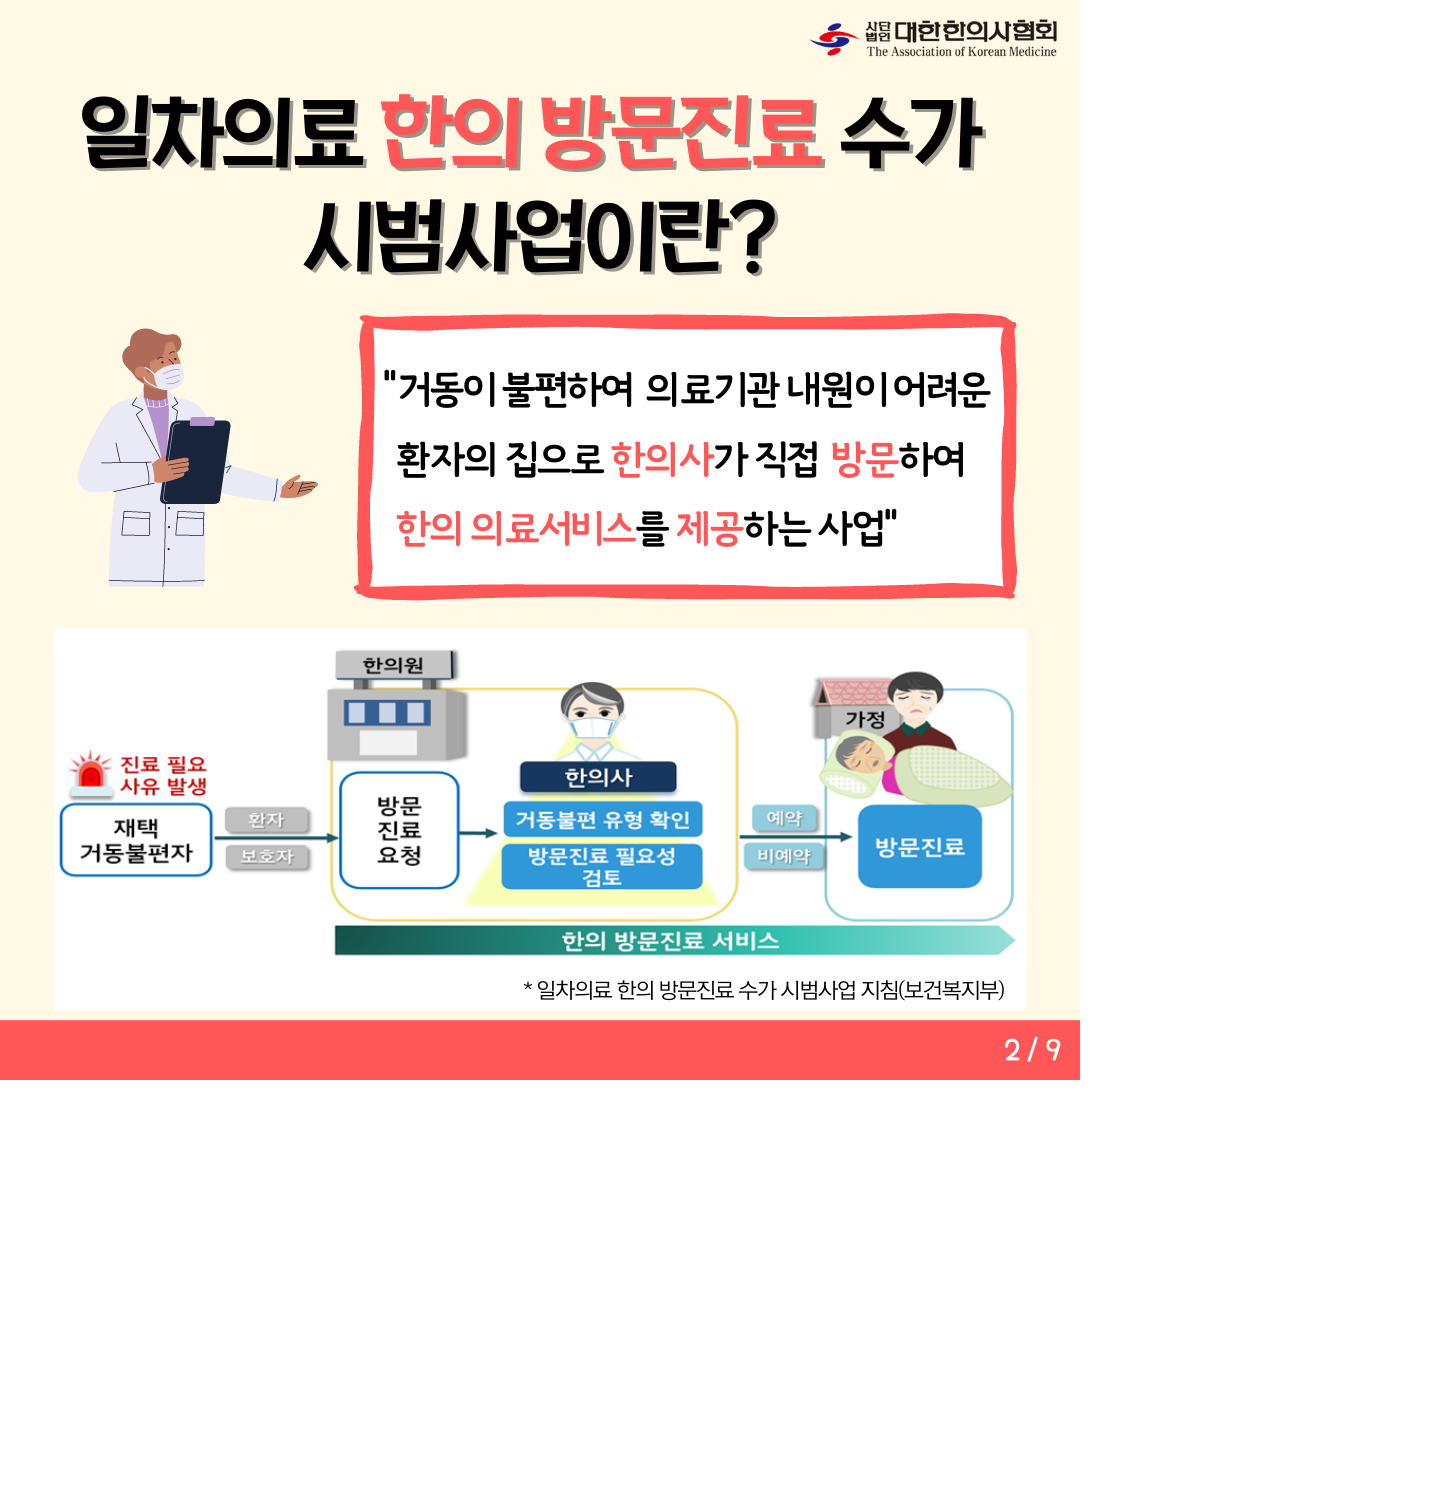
%!PS
<< /PageSize [1439 1487] >> setpagedevice
/picture { 5 dict begin { /h /w /y /x /name } { exch def } forall
  gsave x y translate w h scale
  w h 8 [w 0 0 h 0 0] name (r) file false 3 colorimage grestore end } def
0 1487 translate 1 -1 scale
4 setmiterlimit
1 setgray
0 0 1439 1487 rectfill
(img1.rgb) 0 0 1080 1080 picture
showpage
